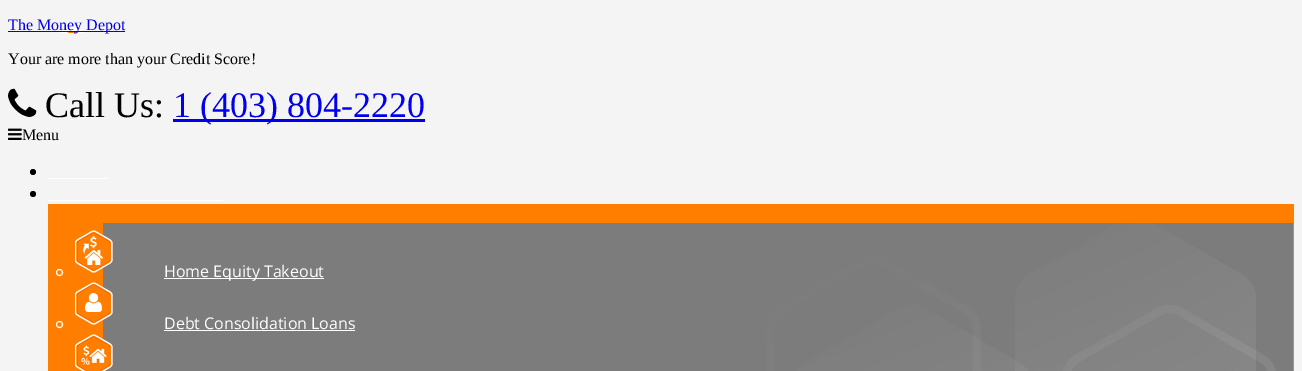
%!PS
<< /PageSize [1302 371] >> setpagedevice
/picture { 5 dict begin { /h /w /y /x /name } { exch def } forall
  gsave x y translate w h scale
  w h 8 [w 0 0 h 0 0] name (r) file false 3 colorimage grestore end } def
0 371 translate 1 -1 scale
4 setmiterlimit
0.957 setgray
0 0 1302 371 rectfill
(img1.rgb) 59 27 27 6 picture
0 0 0.933 setrgbcolor
8 31 117 1 rectfill
/LiberationSerif-Regular [16 0 0 -16 0 0] selectfont
8 30 moveto (The Money Depot) show
0 setgray
8 64 moveto (Your are more than your Credit Score!) show
(img2.rgb) 8 88 29 29 picture
/LiberationSerif-Regular [36 0 0 -36 0 0] selectfont
45 117 moveto (Call Us:) show
0 0 0.933 setrgbcolor
173 119 252 3 rectfill
173 117 moveto (1 \(403\) 804-2220) show
(img3.rgb) 8 128 14 12 picture
/LiberationSerif-Regular [16 0 0 -16 0 0] selectfont
0 setgray
22 140 moveto (Menu) show
newpath 33 172 3 0 360 arc closepath fill
1 setgray
48 178 60 1 rectfill
0 setgray
newpath 33 194 3 0 360 arc closepath fill
1 setgray
48 200 175 1 rectfill
1 0.494 0 setrgbcolor
48 204 1246 167 rectfill
(img4.rgb) 103 223 1190 148 picture
1 setgray
newpath 59.5 272.5 3 0 360 arc closepath stroke
(img5.rgb) 75 230 38 43 picture
164 278 160 1 rectfill
/OpenSans-Regular [16 0 0 -16 0 0] selectfont
164 277 moveto (Home Equity Takeout) show
newpath 59.5 324.5 3 0 360 arc closepath stroke
(img6.rgb) 75 282 38 43 picture
164 329 moveto (Debt Consolidation Loans) show
164 330 191 1 rectfill
(img7.rgb) 75 334 38 37 picture
showpage
